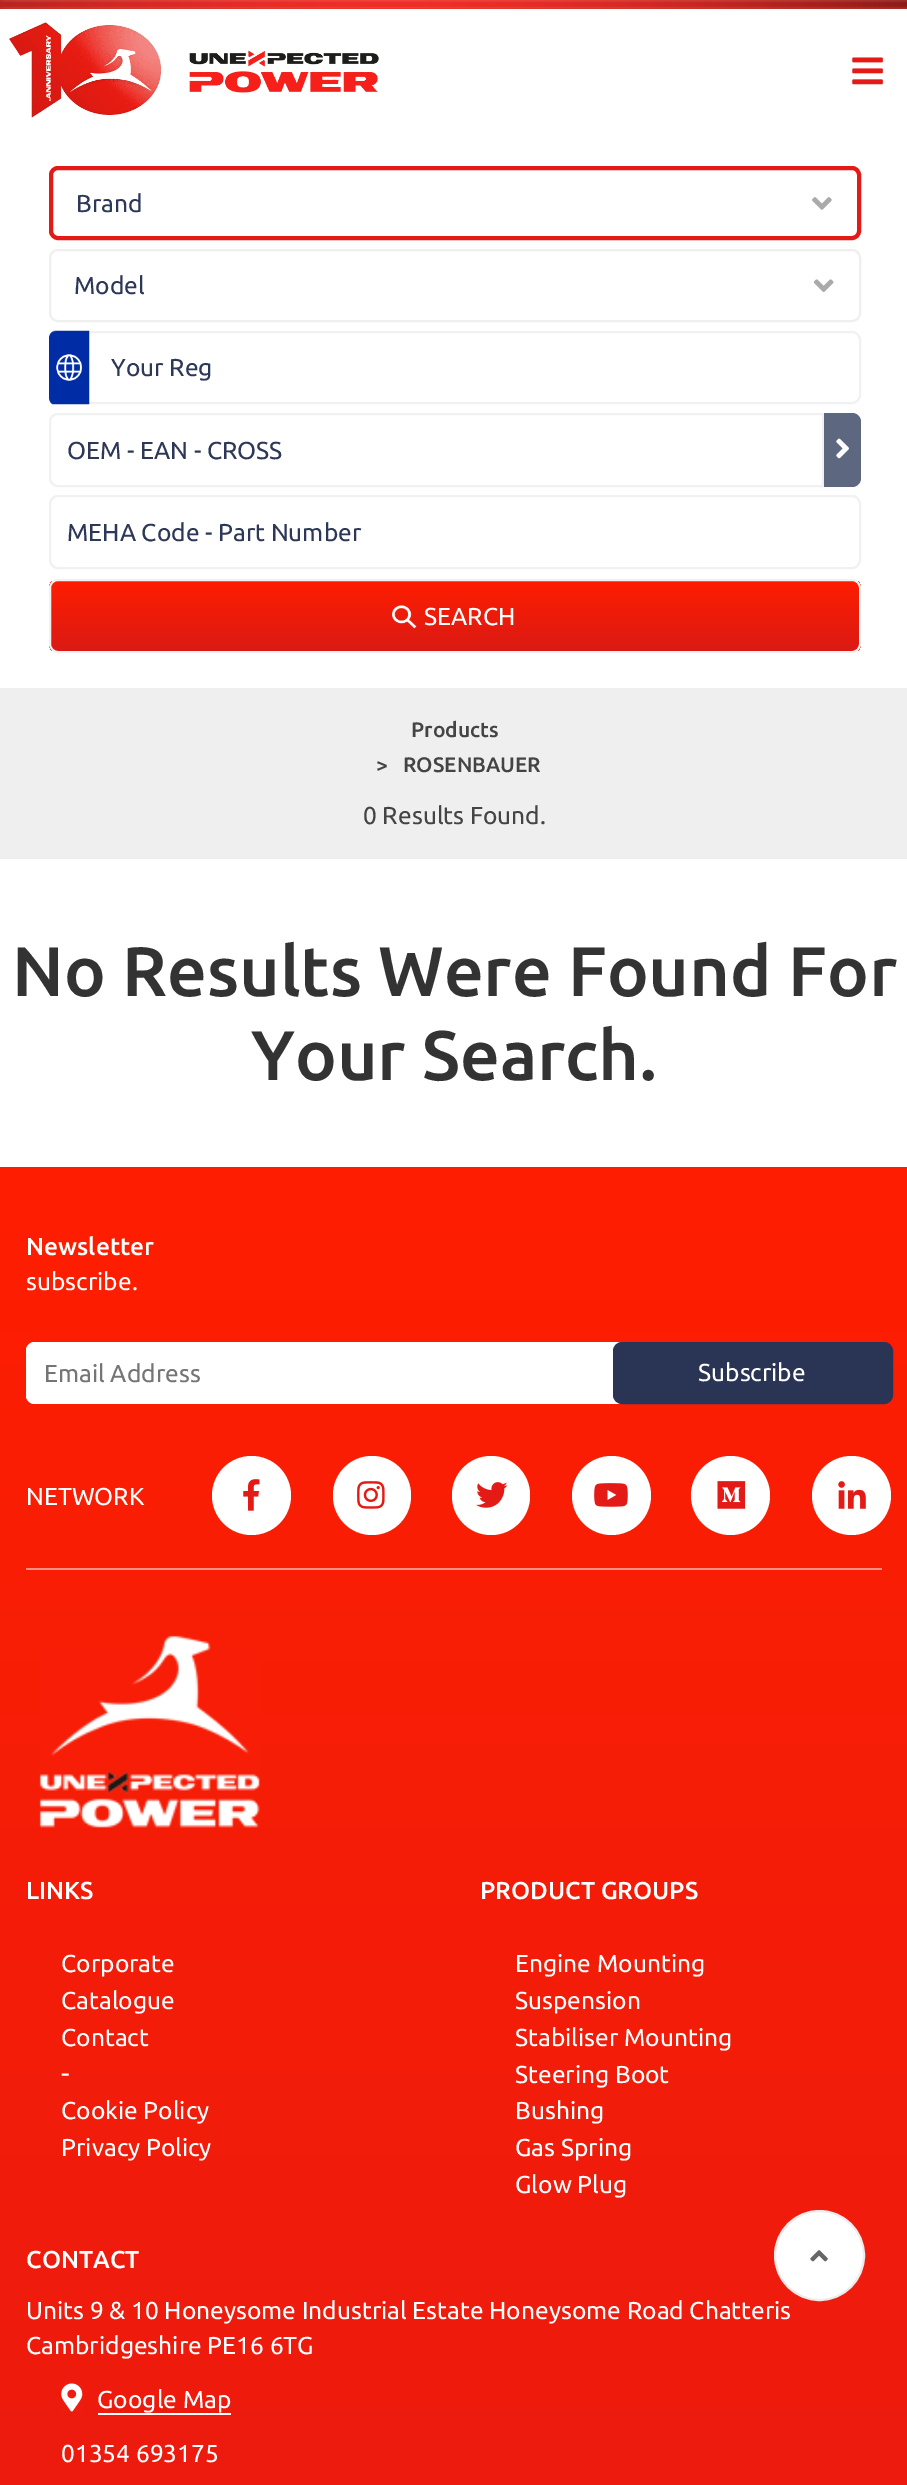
%!PS
<< /PageSize [907 2485] >> setpagedevice
/roundrect { 5 dict begin { /r /h /w /y /x } { exch def } forall
  x r add y moveto x w add y 2 copy h add r arct x w add y h add x 1 index r arct
  x y h add x y r arct x y 2 copy exch w add exch r arct closepath end } def
/picture { 5 dict begin { /h /w /y /x /name } { exch def } forall
  gsave x y translate w h scale
  w h 8 [w 0 0 h 0 0] name (r) file false 3 colorimage grestore end } def
0 2485 translate 1 -1 scale
4 setmiterlimit
1 setgray
0 0 907 2485 rectfill
(img1.rgb) 0 0 907 9 picture
(img2.rgb) 9 22 370 96 picture
(img3.rgb) 852 57 31 28 picture
0.894 0.102 0.086 setrgbcolor
4 setlinewidth
51 168 808 70 7 roundrect stroke
/Ubuntu-Regular [24.5 0 0 -24.5 0 0] selectfont
0.176 0.22 0.345 setrgbcolor
76 212 moveto (Brand) show
(img4.rgb) 812 197 20 13 picture
0.937 setgray
2 setlinewidth
50 250 810 71 8 roundrect stroke
0.176 0.22 0.345 setrgbcolor
74 294 moveto (Model) show
(img5.rgb) 813 279 21 13 picture
0.945 setgray
50 332 810 71 8 roundrect stroke
(img6.rgb) 49 330 41 75 picture
0.176 0.22 0.345 setrgbcolor
111 376 moveto (Your Reg) show
0.945 setgray
newpath 58 414 moveto 823 414 lineto 823 486 lineto 58 486 lineto 53.5 486 50 482.5 50 478 curveto 50 422 lineto 50 417.5 53.5 414 58 414 curveto closepath stroke
0.176 0.22 0.345 setrgbcolor
67 459 moveto (OEM - EAN - CROSS) show
0.365 0.404 0.502 setrgbcolor
newpath 824 413 moveto 852 413 lineto 857 413 861 417 861 422 curveto 861 478 lineto 861 483 857 487 852 487 curveto 824 487 lineto closepath fill
(img7.rgb) 836 438 13 21 picture
0.945 setgray
50 496 810 72 8 roundrect stroke
0.176 0.22 0.345 setrgbcolor
67 541 moveto (MEHA Code - Part Number) show
gsave
49 579 812 74 9 roundrect clip newpath
gsave newpath 49 581 moveto 861 581 lineto 861 651 lineto 49 651 lineto closepath clip newpath
<< /ShadingType 2 /ColorSpace /DeviceRGB /Coords [455 581 455 651] /Extend [true true] /Function << /FunctionType 2 /Domain [0 1] /C0 [0.996 0.114 0] /C1 [0.859 0.102 0.078] /N 1 >> >> shfill grestore
grestore
0.945 setgray
50 580 810 72 8 roundrect stroke
(img8.rgb) 392 605 25 24 picture
1 setgray
424 625 moveto (SEARCH) show
0.937 setgray
0 688 907 171 rectfill
/Ubuntu-Medium [21 0 0 -21 0 0] selectfont
0.267 setgray
411 737 moveto (Products) show
376 772 moveto (>) show
403 772 moveto (ROSENBAUER) show
/Ubuntu-Regular [24.5 0 0 -24.5 0 0] selectfont
363 824 moveto (0 Results Found.) show
/Ubuntu-Medium [70 0 0 -70 0 0] selectfont
0.2 setgray
12 996 moveto (No Results Were Found For) show
251 1080 moveto (Your Search.) show
gsave newpath 0 1167 moveto 907 1167 lineto 907 2485 lineto 0 2485 lineto closepath clip newpath
<< /ShadingType 2 /ColorSpace /DeviceRGB /Coords [454 1167 454 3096] /Extend [true true] /Function << /FunctionType 2 /Domain [0 1] /C0 [1 0.118 0] /C1 [0.894 0.102 0.086] /N 1 >> >> shfill grestore
0.992 0.557 0.51 setrgbcolor
26 1568 856 2 rectfill
/Ubuntu-Medium [24.5 0 0 -24.5 0 0] selectfont
1 setgray
26 1255 moveto (Newsletter) show
/Ubuntu-Regular [24.5 0 0 -24.5 0 0] selectfont
26 1290 moveto (subscribe.) show
26 1342 856 62 9 roundrect fill
26 1342 587 62 9 roundrect fill
0.459 setgray
44 1382 moveto (Email Address) show
0.165 0.208 0.337 setrgbcolor
614 1343 278 60 8 roundrect gsave fill grestore
stroke
1 setgray
698 1381 moveto (Subscribe) show
26 1505 moveto (NETWORK) show
newpath 251.5 1495.5 39.5 0 360 arc closepath fill
(img9.rgb) 243 1479 17 32 picture
333 1456 78 79 39 roundrect fill
(img10.rgb) 357 1481 28 28 picture
452 1456 78 79 39 roundrect fill
(img11.rgb) 476 1482 32 26 picture
newpath 611.5 1495.5 39.5 0 360 arc closepath fill
(img12.rgb) 594 1483 34 24 picture
newpath 730.5 1495.5 39.5 0 360 arc closepath fill
(img13.rgb) 717 1481 29 28 picture
newpath 851.5 1495.5 39.5 0 360 arc closepath fill
(img14.rgb) 838 1481 28 28 picture
(img15.rgb) 39 1635 221 193 picture
/Ubuntu-Medium [24.5 0 0 -24.5 0 0] selectfont
26 1899 moveto (LINKS) show
/Ubuntu-Regular [24.5 0 0 -24.5 0 0] selectfont
61 1972 moveto (Corporate) show
61 2009 moveto (Catalogue) show
61 2046 moveto (Contact) show
/Ubuntu-Regular [28 0 0 -28 0 0] selectfont
61 2083 moveto (-) show
/Ubuntu-Regular [24.5 0 0 -24.5 0 0] selectfont
61 2119 moveto (Cookie Policy) show
61 2156 moveto (Privacy Policy) show
/Ubuntu-Medium [24.5 0 0 -24.5 0 0] selectfont
480 1899 moveto (PRODUCT GROUPS) show
/Ubuntu-Regular [24.5 0 0 -24.5 0 0] selectfont
515 1972 moveto (Engine Mounting) show
515 2009 moveto (Suspension) show
515 2046 moveto (Stabiliser Mounting) show
515 2083 moveto (Steering Boot) show
515 2119 moveto (Bushing) show
515 2156 moveto (Gas Spring) show
515 2193 moveto (Glow Plug) show
/Ubuntu-Medium [24.5 0 0 -24.5 0 0] selectfont
26 2268 moveto (CONTACT) show
/Ubuntu-Regular [24.5 0 0 -24.5 0 0] selectfont
26 2319 moveto (Units 9 & 10 Honeysome Industrial Estate Honeysome Road Chatteris) show
26 2354 moveto (Cambridgeshire PE16 6TG) show
(img16.rgb) 61 2383 22 29 picture
97 2408 moveto (Google Map) show
98 2413 133 2 rectfill
61 2462 moveto (01354 693175) show
newpath 819.5 2255.5 44.5 0 360 arc closepath gsave fill grestore
0.925 setgray
stroke
(img17.rgb) 810 2250 18 12 picture
showpage
